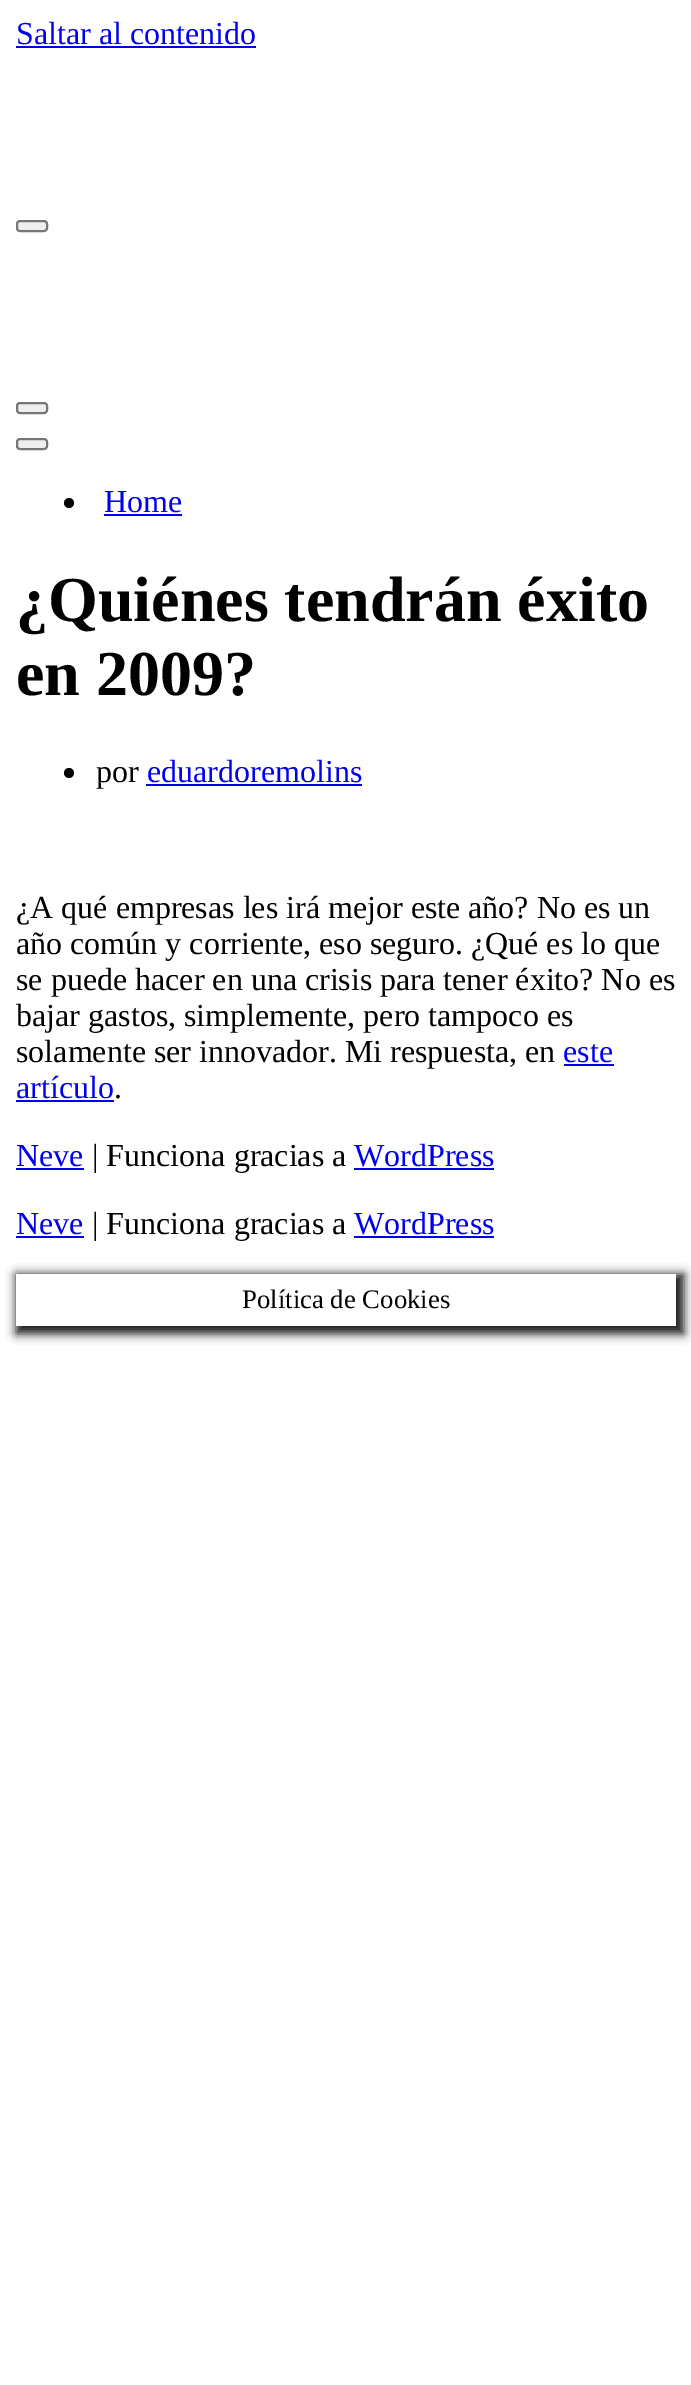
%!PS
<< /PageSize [691 2385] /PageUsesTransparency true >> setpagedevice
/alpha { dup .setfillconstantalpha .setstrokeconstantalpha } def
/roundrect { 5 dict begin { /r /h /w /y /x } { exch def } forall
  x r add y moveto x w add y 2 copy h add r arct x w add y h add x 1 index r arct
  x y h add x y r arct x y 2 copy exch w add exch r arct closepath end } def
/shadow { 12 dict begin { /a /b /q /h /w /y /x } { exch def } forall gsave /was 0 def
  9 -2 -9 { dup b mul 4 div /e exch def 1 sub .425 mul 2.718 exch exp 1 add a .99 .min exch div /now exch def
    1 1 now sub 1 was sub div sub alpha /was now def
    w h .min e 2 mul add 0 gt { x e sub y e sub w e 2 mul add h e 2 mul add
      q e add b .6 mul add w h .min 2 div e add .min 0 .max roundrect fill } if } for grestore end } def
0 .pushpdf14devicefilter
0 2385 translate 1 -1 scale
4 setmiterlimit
1 setgray
0 0 691 2385 rectfill
/LiberationSerif-Regular [32 0 0 -32 0 0] selectfont
0 0 0.933 setrgbcolor
16 44 moveto (Saltar al contenido) show
16 46 240 2 rectfill
0.937 setgray
17 221 30 10 3 roundrect gsave fill grestore
0.463 setgray
2 setlinewidth
stroke
0.937 setgray
17 403 30 10 3 roundrect gsave fill grestore
0.463 setgray
stroke
0.937 setgray
17 439 30 10 3 roundrect gsave fill grestore
0.463 setgray
stroke
0 setgray
newpath 69 503 5 0 360 arc closepath fill
0 0 0.933 setrgbcolor
104 512 moveto (Home) show
104 514 78 2 rectfill
/LiberationSerif-Bold [64 0 0 -64 0 0] selectfont
0 setgray
16 621 moveto (¿Quiénes tendrán éxito) show
16 695 moveto (en 2009?) show
newpath 69 773 5 0 360 arc closepath fill
/LiberationSerif-Regular [32 0 0 -32 0 0] selectfont
96 782 moveto (por) show
0 0 0.933 setrgbcolor
146 784 216 2 rectfill
147 782 moveto (eduardoremolins) show
0 setgray
16 918 moveto (¿A qué empresas les irá mejor este año? No es un) show
16 954 moveto (año común y corriente, eso seguro. ¿Qué es lo que) show
16 990 moveto (se puede hacer en una crisis para tener éxito? No es) show
16 1026 moveto (bajar gastos, simplemente, pero tampoco es) show
16 1062 moveto (solamente ser innovador. Mi respuesta, en) show
0 0 0.933 setrgbcolor
563 1062 moveto (este) show
564 1064 50 2 rectfill
16 1098 moveto (artículo) show
16 1100 98 2 rectfill
0 setgray
114 1098 moveto (.) show
0 0 0.933 setrgbcolor
16 1166 moveto (Neve) show
16 1168 68 2 rectfill
0 setgray
92 1166 moveto (| Funciona gracias a) show
0 0 0.933 setrgbcolor
354 1166 moveto (WordPress) show
354 1168 140 2 rectfill
16 1234 moveto (Neve) show
16 1236 68 2 rectfill
0 setgray
92 1234 moveto (| Funciona gracias a) show
0 0 0.933 setrgbcolor
354 1234 moveto (WordPress) show
354 1236 140 2 rectfill
gsave
newpath 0 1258 moveto 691 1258 lineto 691 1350 lineto 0 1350 lineto closepath 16 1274 moveto 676 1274 lineto 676 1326 lineto 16 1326 lineto closepath eoclip newpath
0.086 setgray
16 1274 668 60 0 5 1 shadow
grestore
/LiberationSerif-Regular [26.75 0 0 -26.75 0 0] selectfont
0 setgray
242 1308 moveto (Política de Cookies) show
.poppdf14devicefilter showpage
